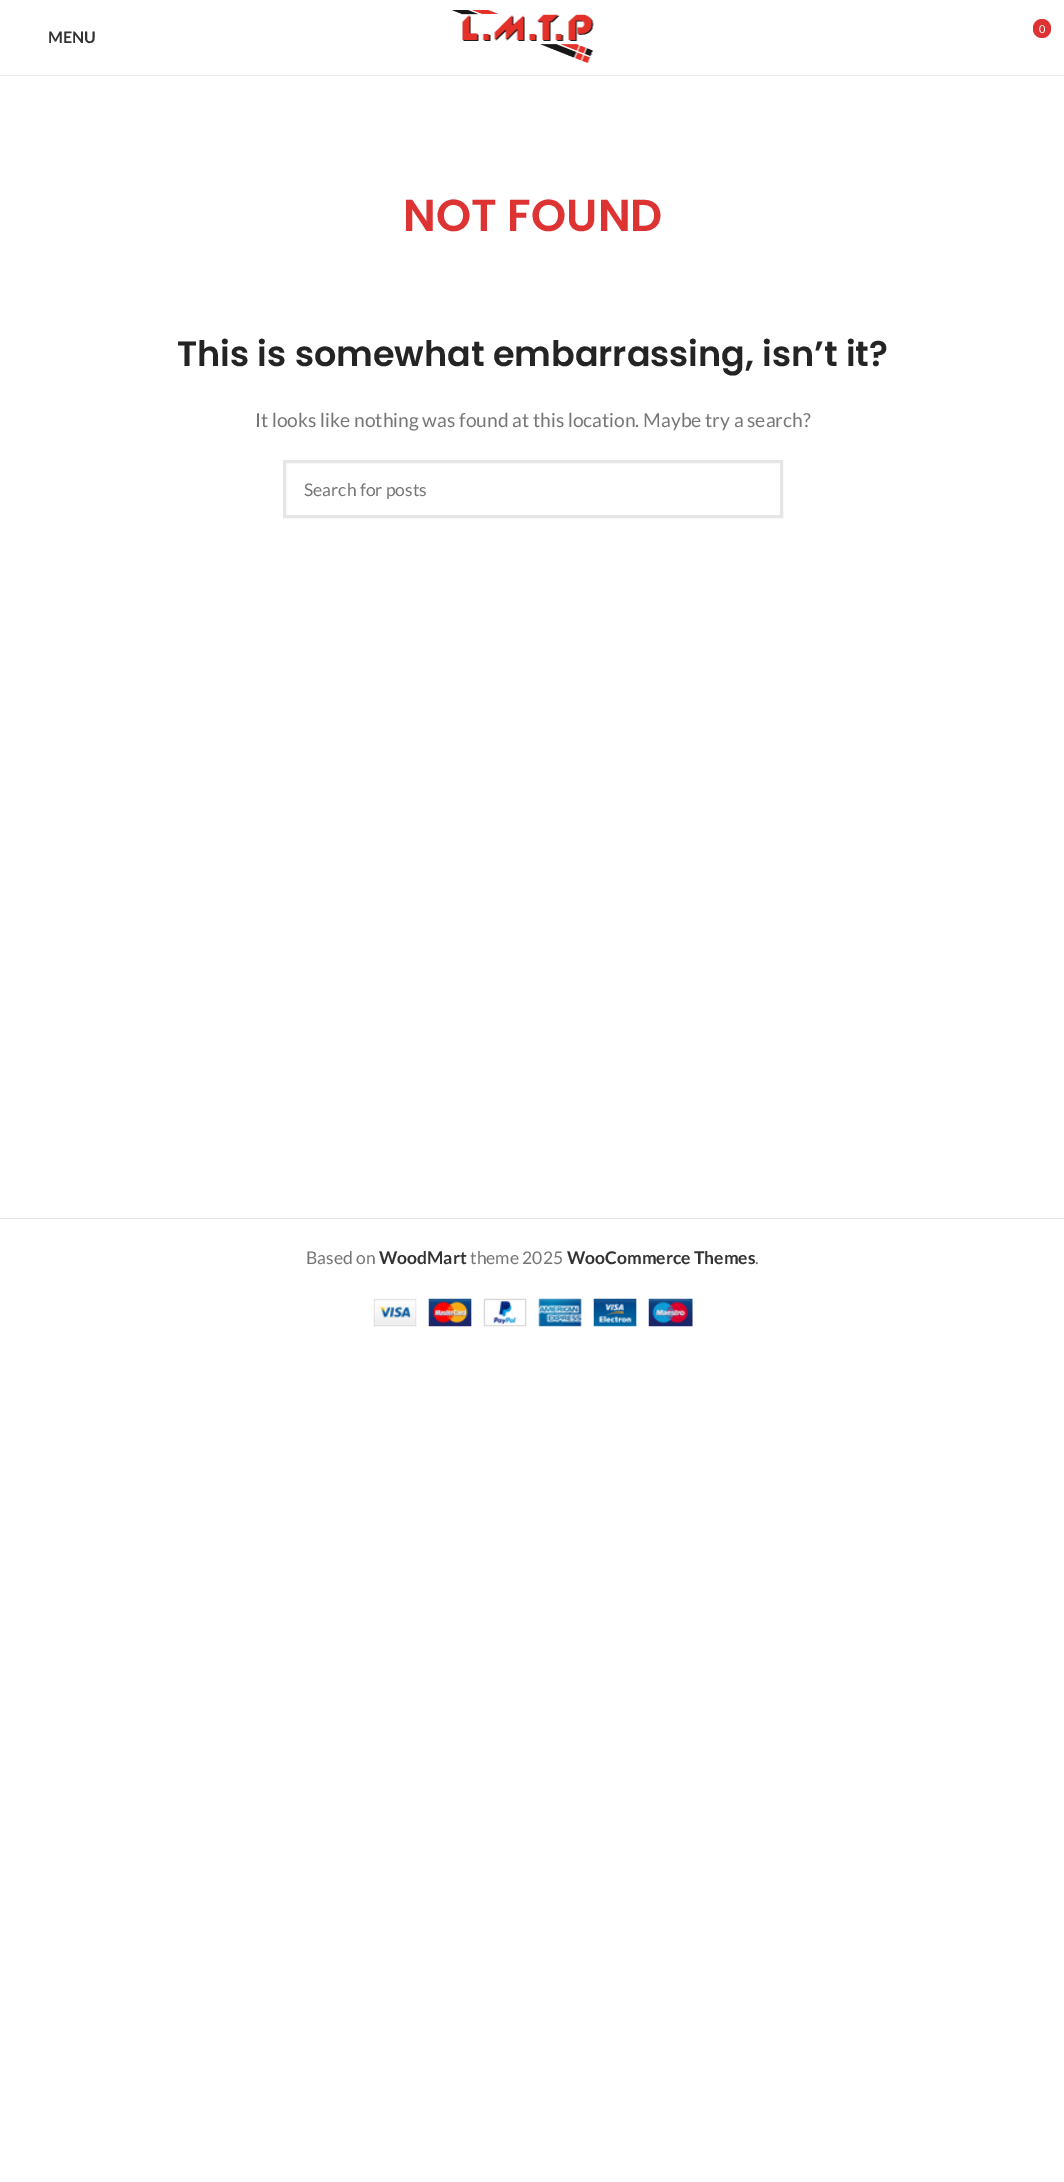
%!PS
<< /PageSize [1064 2182] >> setpagedevice
/roundrect { 5 dict begin { /r /h /w /y /x } { exch def } forall
  x r add y moveto x w add y 2 copy h add r arct x w add y h add x 1 index r arct
  x y h add x y r arct x y 2 copy exch w add exch r arct closepath end } def
/picture { 5 dict begin { /h /w /y /x /name } { exch def } forall
  gsave x y translate w h scale
  w h 8 [w 0 0 h 0 0] name (r) file false 3 colorimage grestore end } def
0 2182 translate 1 -1 scale
4 setmiterlimit
1 setgray
0 0 1064 2182 rectfill
0.91 setgray
0 75 1064 1 rectfill
(img1.rgb) 451 10 143 53 picture
0.867 0.2 0.2 setrgbcolor
1033 19 18 19 9 roundrect fill
/Lato-Regular [11 0 0 -11 0 0] selectfont
1 setgray
1039 33 moveto (0) show
/Lato-Bold [16 0 0 -16 0 0] selectfont
0.2 setgray
48 43 moveto (MENU) show
/Poppins-SemiBold [44.75 0 0 -44.75 0 0] selectfont
0.867 0.2 0.2 setrgbcolor
403 231 moveto (NOT FOUND) show
/Poppins-SemiBold [35 0 0 -35 0 0] selectfont
0.141 setgray
177 366 moveto (This is somewhat embarrassing, isn’t it?) show
/Lato-Regular [19.25 0 0 -19.25 0 0] selectfont
0.463 setgray
255 427 moveto (It looks like nothing was found at this location. Maybe try a search?) show
0.902 setgray
3 setlinewidth
284.5 461.5 497 55 rectstroke
/Lato-Regular [17.5 0 0 -17.5 0 0] selectfont
0.463 setgray
304 496 moveto (Search for posts) show
0.894 setgray
0 1218 1064 1 rectfill
0.463 setgray
306 1264 moveto (Based on) show
/Lato-Bold [17.5 0 0 -17.5 0 0] selectfont
0.2 setgray
379 1264 moveto (WoodMart) show
/Lato-Regular [17.5 0 0 -17.5 0 0] selectfont
0.463 setgray
470 1264 moveto (theme 2025) show
/Lato-Bold [17.5 0 0 -17.5 0 0] selectfont
0.2 setgray
567 1264 moveto (WooCommerce Themes) show
/Lato-Regular [17.5 0 0 -17.5 0 0] selectfont
0.463 setgray
755 1264 moveto (.) show
(img2.rgb) 373 1298 320 29 picture
showpage
